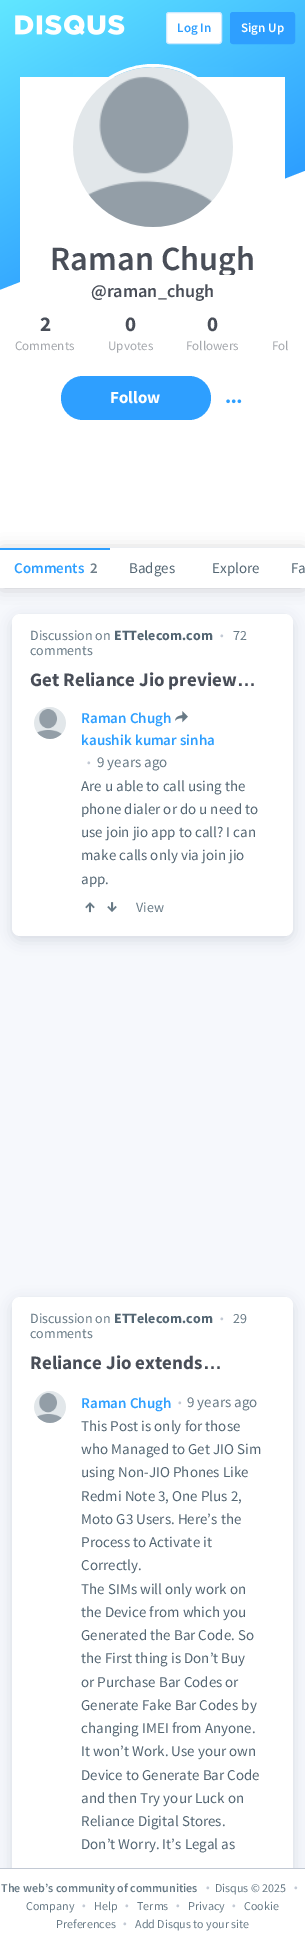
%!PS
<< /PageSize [305 1943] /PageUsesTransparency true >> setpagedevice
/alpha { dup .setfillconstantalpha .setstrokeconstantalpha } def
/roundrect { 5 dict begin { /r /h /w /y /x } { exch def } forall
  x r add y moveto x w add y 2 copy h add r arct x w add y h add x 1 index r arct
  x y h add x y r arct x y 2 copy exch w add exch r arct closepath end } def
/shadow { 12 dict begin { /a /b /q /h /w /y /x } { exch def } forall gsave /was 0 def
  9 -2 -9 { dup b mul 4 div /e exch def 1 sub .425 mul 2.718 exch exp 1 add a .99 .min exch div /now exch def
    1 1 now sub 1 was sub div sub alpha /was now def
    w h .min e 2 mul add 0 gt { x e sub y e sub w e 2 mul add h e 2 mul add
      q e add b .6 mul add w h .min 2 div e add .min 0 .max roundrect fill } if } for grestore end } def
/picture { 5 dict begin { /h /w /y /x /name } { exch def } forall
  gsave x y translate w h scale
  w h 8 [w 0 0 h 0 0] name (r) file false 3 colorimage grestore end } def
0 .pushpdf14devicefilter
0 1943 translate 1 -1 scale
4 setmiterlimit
0.965 0.973 0.988 setrgbcolor
0 0 305 1943 rectfill
gsave newpath 0 0 moveto 305 0 lineto 305 290 lineto 0 290 lineto closepath clip newpath
<< /ShadingType 2 /ColorSpace /DeviceRGB /Coords [-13 7.5 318 581] /Extend [true true] /Function << /FunctionType 3 /Domain [0 1] /Functions [<< /FunctionType 2 /Domain [0 1] /C0 [0.38 0.906 1] /C1 [0.18 0.624 1] /N 1 >> << /FunctionType 2 /Domain [0 1] /C0 [0.18 0.624 1] /C1 [0.18 0.624 1] /N 1 >>] /Bounds [0.45] /Encode [0 1 0 1] >> >> shfill grestore
(img1.rgb) 15 15 110 20 picture
1 setgray
166.5 12.5 55 31 2.5 roundrect gsave fill grestore
0.8 0.914 1 setrgbcolor
stroke
/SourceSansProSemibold-SemiBold [13 0 0 -13 0 0] selectfont
0.18 0.624 1 setrgbcolor
177 32 moveto (Log In) show
230.5 12.5 64 31 2.5 roundrect gsave fill grestore
stroke
1 setgray
241 32 moveto (Sign Up) show
20 77 265 206 rectfill
0 527 305 20 rectfill
0 setgray
2 550 301 37 0 8 0.2 shadow
1 setgray
newpath 0 290 moveto 0 527 lineto 305 527 lineto 305 171 lineto closepath fill
3 setlinewidth
newpath 153 147 81.5 0 360 arc closepath stroke
(img2.rgb) 73 67 160 160 picture
gsave
15 241 275 34 rectclip
/SourceSansProSemibold-SemiBold [34 0 0 -34 0 0] selectfont
0.286 0.306 0.345 setrgbcolor
50 270 moveto (Raman Chugh) show
grestore
/SourceSansProSemibold-SemiBold [18 0 0 -18 0 0] selectfont
0.286 0.306 0.345 setrgbcolor
91 297 moveto (@raman_chugh) show
/SourceSansPro-Bold [21 0 0 -21 0 0] selectfont
40 331 moveto (2) show
/SourceSansPro-Regular [13 0 0 -13 0 0] selectfont
0.643 0.655 0.675 setrgbcolor
15 350 moveto (Comments) show
/SourceSansPro-Bold [21 0 0 -21 0 0] selectfont
0.286 0.306 0.345 setrgbcolor
125 331 moveto (0) show
/SourceSansPro-Regular [13 0 0 -13 0 0] selectfont
0.643 0.655 0.675 setrgbcolor
108 350 moveto (Upvotes) show
/SourceSansPro-Bold [21 0 0 -21 0 0] selectfont
0.286 0.306 0.345 setrgbcolor
207 331 moveto (0) show
/SourceSansPro-Regular [13 0 0 -13 0 0] selectfont
0.643 0.655 0.675 setrgbcolor
186 350 moveto (Followers) show
272 350 moveto (Fol) show
0.18 0.624 1 setrgbcolor
61 376 150 44 22 roundrect fill
/SourceSansPro-Bold [17 0 0 -17 0 0] selectfont
1 setgray
110 403 moveto (Follow) show
(img3.rgb) 226 399 16 5 picture
0.133 0.216 0.302 setrgbcolor
12 618 281 322 8 7 0.15 shadow
1 setgray
12 614 281 322 8 roundrect fill
/SourceSansPro-Regular [14 0 0 -14 0 0] selectfont
0.408 0.478 0.525 setrgbcolor
30 640 moveto (Discussion on) show
/SourceSansPro-Bold [14 0 0 -14 0 0] selectfont
0.329 0.4 0.451 setrgbcolor
114 640 moveto (ETTelecom.com) show
/SourceSansPro-Regular [12 0 0 -12 0 0] selectfont
0.761 0.788 0.831 setrgbcolor
220 639 moveto (•) show
/SourceSansPro-Regular [14 0 0 -14 0 0] selectfont
0.408 0.478 0.525 setrgbcolor
233 640 moveto (72) show
30 655 moveto (comments) show
/SourceSansPro-Bold [19 0 0 -19 0 0] selectfont
0.286 0.306 0.345 setrgbcolor
30 686 moveto (Get Reliance Jio preview) show
/LiberationSans-Bold [19 0 0 -19 0 0] selectfont
237 686 moveto (…) show
(img4.rgb) 34 707 32 32 picture
/SourceSansProSemibold-SemiBold [15 0 0 -15 0 0] selectfont
0.18 0.624 1 setrgbcolor
81 723 moveto (Raman Chugh) show
(img5.rgb) 175 711 13 12 picture
81 745 moveto (kaushik kumar sinha) show
/SourceSansPro-Regular [12 0 0 -12 0 0] selectfont
0.761 0.788 0.831 setrgbcolor
87 766 moveto (•) show
/SourceSansPro-Regular [15 0 0 -15 0 0] selectfont
0.408 0.478 0.525 setrgbcolor
97 767 moveto (9 years ago) show
0.329 0.4 0.451 setrgbcolor
81 791 moveto (Are u able to call using the) show
81 814 moveto (phone dialer or do u need to) show
81 837 moveto (use join jio app to call? I can) show
81 860 moveto (make calls only via join jio) show
81 884 moveto (app.) show
(img6.rgb) 85 902 10 11 picture
(img7.rgb) 107 902 10 10 picture
/SourceSansPro-Regular [14 0 0 -14 0 0] selectfont
0.408 0.478 0.525 setrgbcolor
136 912 moveto (View) show
0.133 0.216 0.302 setrgbcolor
12 1301 281 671 8 7 0.15 shadow
1 setgray
12 1297 281 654 8 roundrect fill
0.408 0.478 0.525 setrgbcolor
30 1323 moveto (Discussion on) show
/SourceSansPro-Bold [14 0 0 -14 0 0] selectfont
0.329 0.4 0.451 setrgbcolor
114 1323 moveto (ETTelecom.com) show
/SourceSansPro-Regular [12 0 0 -12 0 0] selectfont
0.761 0.788 0.831 setrgbcolor
220 1322 moveto (•) show
/SourceSansPro-Regular [14 0 0 -14 0 0] selectfont
0.408 0.478 0.525 setrgbcolor
233 1323 moveto (29) show
30 1338 moveto (comments) show
/SourceSansPro-Bold [19 0 0 -19 0 0] selectfont
0.286 0.306 0.345 setrgbcolor
30 1369 moveto (Reliance Jio extends) show
/LiberationSans-Bold [19 0 0 -19 0 0] selectfont
203 1369 moveto (…) show
(img4.rgb) 34 1391 32 32 picture
/SourceSansProSemibold-SemiBold [15 0 0 -15 0 0] selectfont
0.18 0.624 1 setrgbcolor
81 1408 moveto (Raman Chugh) show
/SourceSansPro-Regular [12 0 0 -12 0 0] selectfont
0.761 0.788 0.831 setrgbcolor
178 1406 moveto (•) show
/SourceSansPro-Regular [15 0 0 -15 0 0] selectfont
0.408 0.478 0.525 setrgbcolor
187 1407 moveto (9 years ago) show
0.329 0.4 0.451 setrgbcolor
81 1431 moveto (This Post is only for those) show
81 1454 moveto (who Managed to Get JIO Sim) show
81 1477 moveto (using Non-JIO Phones Like) show
81 1501 moveto (Redmi Note 3, One Plus 2,) show
81 1524 moveto (Moto G3 Users. Here’s the) show
81 1547 moveto (Process to Activate it) show
81 1570 moveto (Correctly.) show
81 1594 moveto (The SIMs will only work on) show
81 1617 moveto (the Device from which you) show
81 1640 moveto (Generated the Bar Code. So) show
81 1663 moveto (the First thing is Don’t Buy) show
81 1687 moveto (or Purchase Bar Codes or) show
81 1710 moveto (Generate Fake Bar Codes by) show
81 1733 moveto (changing IMEI from Anyone.) show
81 1756 moveto (It won’t Work. Use your own) show
81 1780 moveto (Device to Generate Bar Code) show
81 1803 moveto (and then Try your Luck on) show
81 1826 moveto (Reliance Digital Stores.) show
81 1849 moveto (Don’t Worry. It’s Legal as) show
1 setgray
0 548 305 40 rectfill
0.922 0.933 0.949 setrgbcolor
0 547 305 1 rectfill
0.18 0.624 1 setrgbcolor
0 548 110 2 rectfill
/SourceSansProSemibold-SemiBold [15 0 0 -15 0 0] selectfont
14 573 moveto (Comments) show
0.431 0.49 0.533 setrgbcolor
90 573 moveto (2) show
/SourceSansPro-Regular [15 0 0 -15 0 0] selectfont
0.329 0.4 0.451 setrgbcolor
129 573 moveto (Badges) show
212 573 moveto (Explore) show
291 573 moveto (Fa) show
1 setgray
0 1869 305 74 rectfill
0.761 0.788 0.831 setrgbcolor
0 1868 305 1 rectfill
/SourceSansProSemibold-SemiBold [12 0 0 -12 0 0] selectfont
0.408 0.478 0.525 setrgbcolor
1 1892 moveto (The web’s community of communities) show
/SourceSansPro-Regular [12 0 0 -12 0 0] selectfont
0.761 0.788 0.831 setrgbcolor
206 1891 moveto (•) show
0.408 0.478 0.525 setrgbcolor
215 1892 moveto (Disqus © 2025) show
0.761 0.788 0.831 setrgbcolor
294 1891 moveto (•) show
0.408 0.478 0.525 setrgbcolor
26 1910 moveto (Company) show
0.761 0.788 0.831 setrgbcolor
82 1909 moveto (•) show
0.408 0.478 0.525 setrgbcolor
94 1910 moveto (Help) show
0.761 0.788 0.831 setrgbcolor
125 1909 moveto (•) show
0.408 0.478 0.525 setrgbcolor
137 1910 moveto (Terms) show
0.761 0.788 0.831 setrgbcolor
176 1909 moveto (•) show
0.408 0.478 0.525 setrgbcolor
188 1910 moveto (Privacy) show
0.761 0.788 0.831 setrgbcolor
232 1909 moveto (•) show
0.408 0.478 0.525 setrgbcolor
244 1910 moveto (Cookie) show
56 1928 moveto (Preferences) show
0.761 0.788 0.831 setrgbcolor
123 1927 moveto (•) show
0.408 0.478 0.525 setrgbcolor
135 1928 moveto (Add Disqus to your site) show
.poppdf14devicefilter showpage
